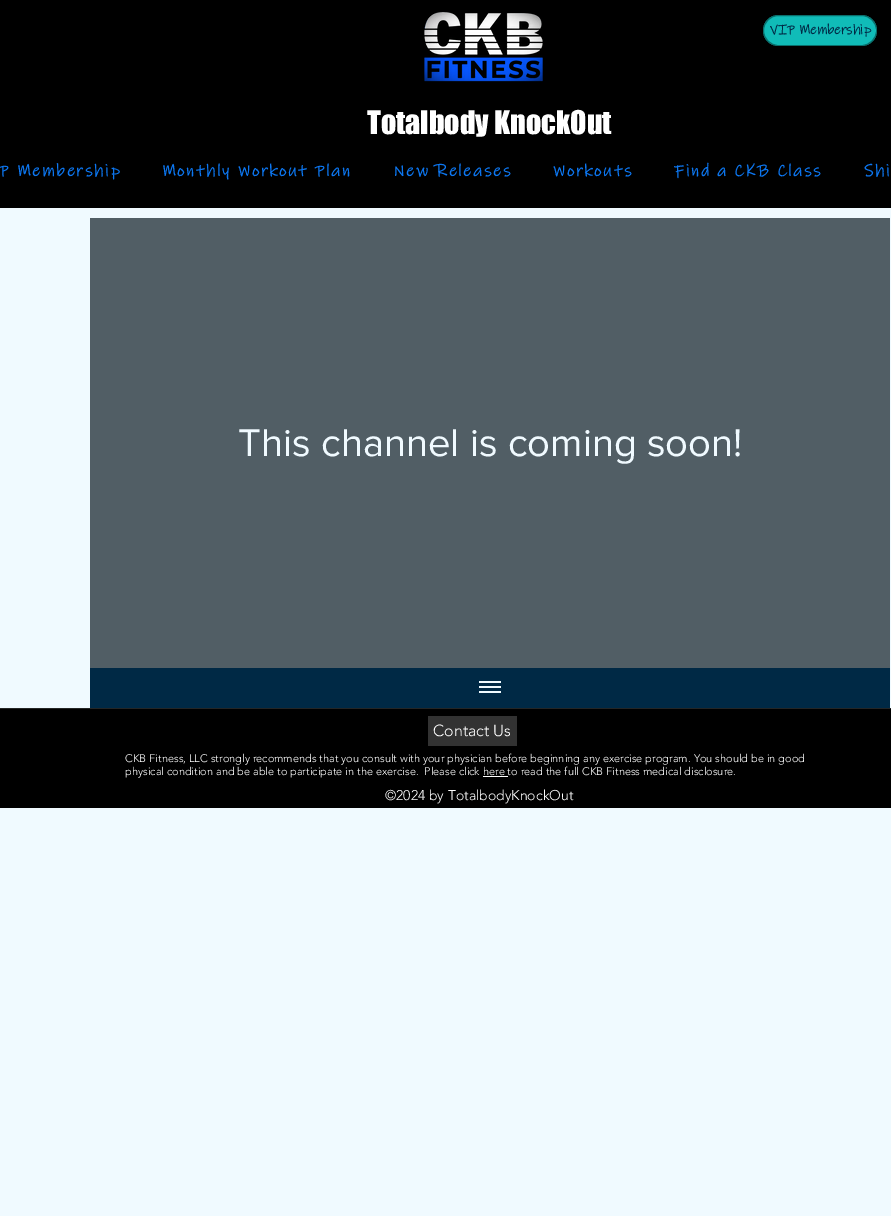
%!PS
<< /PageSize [891 1216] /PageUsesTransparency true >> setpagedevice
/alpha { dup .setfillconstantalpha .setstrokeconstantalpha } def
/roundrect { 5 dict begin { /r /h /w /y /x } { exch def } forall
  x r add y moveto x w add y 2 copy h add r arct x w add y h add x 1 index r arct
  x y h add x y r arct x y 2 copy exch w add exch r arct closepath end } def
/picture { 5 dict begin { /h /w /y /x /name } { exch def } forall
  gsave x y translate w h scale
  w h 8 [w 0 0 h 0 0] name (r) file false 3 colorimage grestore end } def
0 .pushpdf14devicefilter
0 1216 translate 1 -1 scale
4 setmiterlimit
0.941 0.98 1 setrgbcolor
0 0 891 1216 rectfill
0 setgray
0 0 891 208 rectfill
(img1.rgb) 424 12 119 70 picture
0.063 0.737 0.722 setrgbcolor
763 15 114 31 15.5 roundrect fill
0.41 alpha
0 setgray
763.5 15.5 113 30 15 roundrect stroke
/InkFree-Bold [14 0 0 -14 0 0] selectfont
1 alpha
0 0.161 0.271 setrgbcolor
770 34 moveto (VIP Membership) show
/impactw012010-Regular [30 0 0 -30 0 0] selectfont
1 setgray
367 134 moveto (Totalbody KnockOut) show
/InkFree-Bold [17 0 0 -17 0 0] selectfont
0.047 0.463 0.941 setrgbcolor
-1 176 moveto 1.7 0 (P Membership) ashow
162 176 moveto 1.7 0 (Monthly Workout Plan) ashow
393 176 moveto 1.7 0 (New Releases) ashow
553 176 moveto 1.7 0 (Workouts) ashow
674 176 moveto 1.7 0 (Find a CKB Class) ashow
864 176 moveto 1.7 0 (Shi) ashow
0.318 0.369 0.396 setrgbcolor
90 218 800 450 rectfill
/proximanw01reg-Regular [40 0 0 -40 0 0] selectfont
0.941 0.98 1 setrgbcolor
238 456 moveto (This channel is coming soon!) show
0 0.161 0.271 setrgbcolor
90 668 800 40 rectfill
(img2.rgb) 479 681 22 12 picture
0 setgray
0 709 891 99 rectfill
0.141 0.149 0.149 setrgbcolor
0 708 891 1 rectfill
0.196 setgray
428 716 89 30 rectfill
/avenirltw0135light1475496-Light [16 0 0 -16 0 0] selectfont
1 setgray
433 736 moveto (Contact Us) show
/avenirltw0135light1475496-Light [11 0 0 -11 0 0] selectfont
125 762 moveto (CKB Fitness, LLC strongly recommends that you consult with your physician before beginning any exercise program. You should be in good) show
125 775 moveto (physical condition and be able to participate in the exercise.  Please click here to read the full CKB Fitness medical disclosure.) show
483 776 25 1 rectfill
/avenirltw0135light1475496-Light [14 0 0 -14 0 0] selectfont
385 800 moveto (©2024 by TotalbodyKnockOut) show
.poppdf14devicefilter showpage
